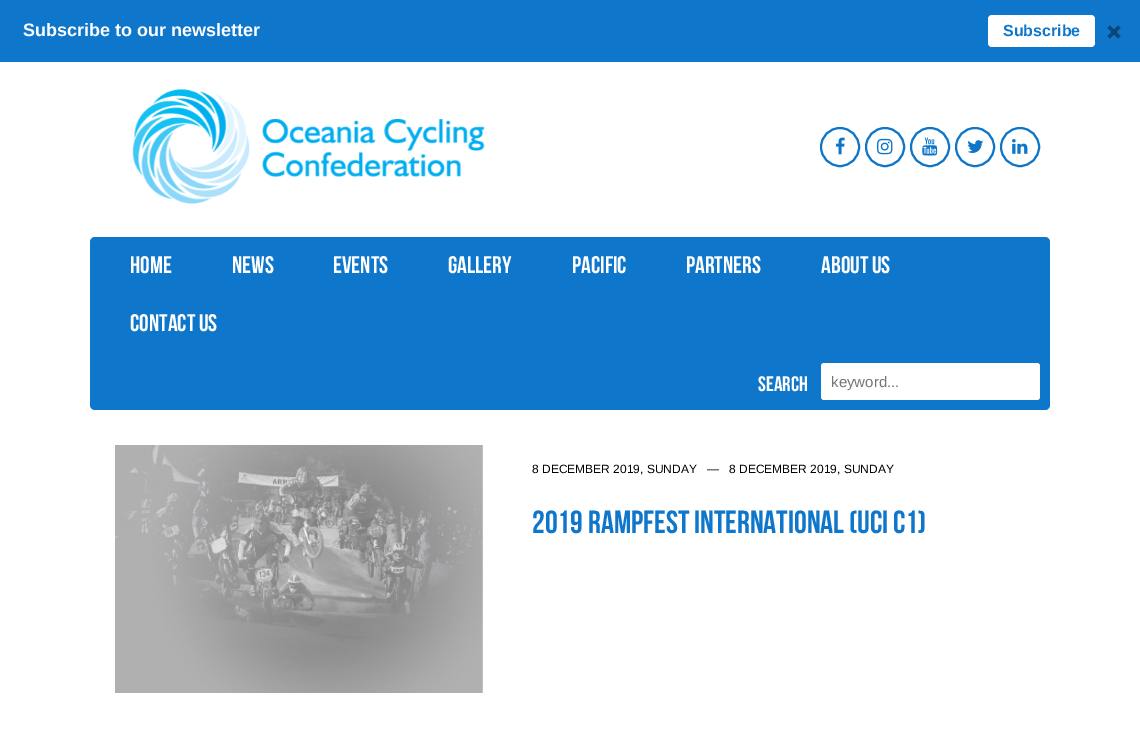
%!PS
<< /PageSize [1140 736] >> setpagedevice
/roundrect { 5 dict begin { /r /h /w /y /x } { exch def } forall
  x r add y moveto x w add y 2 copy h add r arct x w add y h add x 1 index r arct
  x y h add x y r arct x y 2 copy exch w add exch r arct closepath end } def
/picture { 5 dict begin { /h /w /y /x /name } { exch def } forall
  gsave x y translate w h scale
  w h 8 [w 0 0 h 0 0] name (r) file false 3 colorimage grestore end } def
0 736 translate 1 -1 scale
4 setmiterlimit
1 setgray
0 0 1140 736 rectfill
0.055 0.463 0.796 setrgbcolor
0 0 1140 62 rectfill
/LiberationSans-Bold [18 0 0 -18 0 0] selectfont
1 setgray
23 36 moveto (Subscribe to our newsletter) show
988 15 107 32 4 roundrect fill
/LiberationSans-Bold [16 0 0 -16 0 0] selectfont
0.055 0.463 0.796 setrgbcolor
1003 36 moveto (Subscribe) show
(img1.rgb) 1107 25 14 14 picture
(img2.rgb) 132 89 353 116 picture
0.055 0.463 0.788 setrgbcolor
2 setlinewidth
newpath 840 147 19 0 360 arc closepath stroke
(img3.rgb) 835 137 10 18 picture
newpath 885 147 19 0 360 arc closepath stroke
(img4.rgb) 877 138 16 17 picture
newpath 930 147 19 0 360 arc closepath stroke
(img5.rgb) 922 137 16 19 picture
newpath 975 147 19 0 360 arc closepath stroke
(img6.rgb) 967 140 17 13 picture
newpath 1020 147 19 0 360 arc closepath stroke
(img7.rgb) 1012 139 16 15 picture
0.055 0.463 0.796 setrgbcolor
90 237 960 173 5 roundrect fill
/BebasNeue-Regular [24 0 0 -24 0 0] selectfont
1 setgray
130 273 moveto (HOME) show
232 273 moveto (NEWS) show
333 273 moveto (EVENTS) show
448 273 moveto (GALLERY) show
572 273 moveto (PACIFIC) show
686 273 moveto (PARTNERS) show
821 273 moveto (ABOUT US) show
130 331 moveto (CONTACT US) show
/BebasNeue-Regular [21 0 0 -21 0 0] selectfont
758 391 moveto (Search) show
821 363 219 37 3 roundrect fill
/LiberationSans-Regular [15 0 0 -15 0 0] selectfont
0.459 setgray
831 387 moveto (keyword...) show
(img8.rgb) 115 445 368 248 picture
/LiberationSans-Regular [12 0 0 -12 0 0] selectfont
0 setgray
532 473 moveto (8 DECEMBER 2019, SUNDAY   —) show
729 473 moveto (8 DECEMBER 2019, SUNDAY) show
/BebasNeue-Regular [32 0 0 -32 0 0] selectfont
0.055 0.463 0.796 setrgbcolor
532 533 moveto (2019 RAMPFEST INTERNATIONAL \(UCI C1\)) show
showpage
